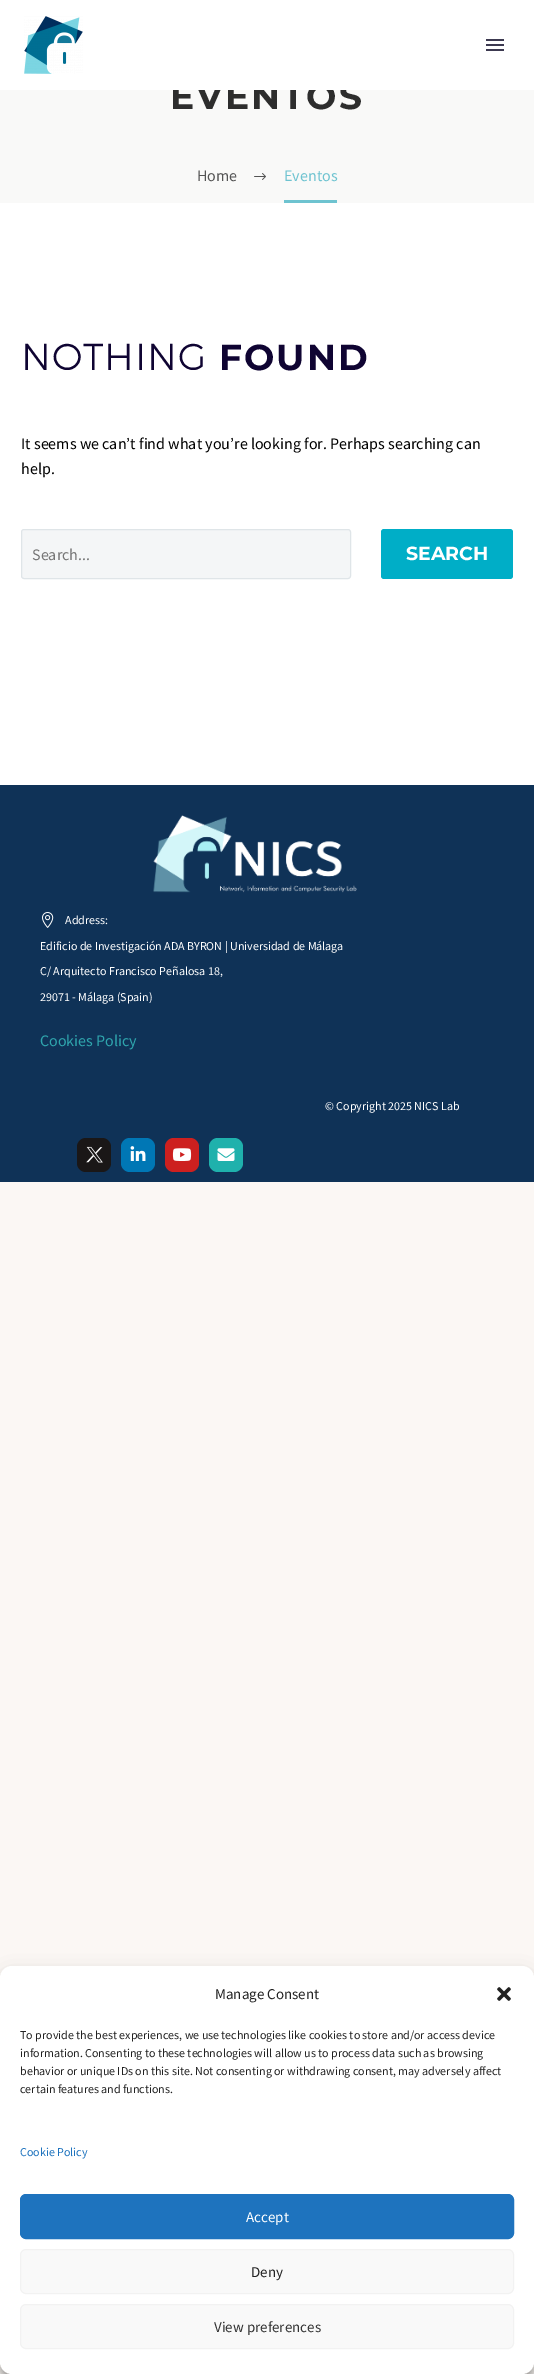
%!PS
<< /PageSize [534 2374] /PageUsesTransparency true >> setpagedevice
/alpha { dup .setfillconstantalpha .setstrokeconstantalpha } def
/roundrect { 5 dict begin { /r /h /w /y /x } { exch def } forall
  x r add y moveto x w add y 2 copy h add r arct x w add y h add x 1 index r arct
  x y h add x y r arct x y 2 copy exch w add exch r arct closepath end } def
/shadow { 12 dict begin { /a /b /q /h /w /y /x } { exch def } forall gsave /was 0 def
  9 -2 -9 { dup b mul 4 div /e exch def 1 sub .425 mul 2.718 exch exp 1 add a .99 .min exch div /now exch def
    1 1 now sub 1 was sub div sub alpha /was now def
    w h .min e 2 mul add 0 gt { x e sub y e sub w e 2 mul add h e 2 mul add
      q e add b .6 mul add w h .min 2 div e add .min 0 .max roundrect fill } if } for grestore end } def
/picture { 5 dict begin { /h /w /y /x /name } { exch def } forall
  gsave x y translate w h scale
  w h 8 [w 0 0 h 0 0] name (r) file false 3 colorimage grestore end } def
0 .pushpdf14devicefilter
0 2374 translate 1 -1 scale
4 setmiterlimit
0.984 0.969 0.957 setrgbcolor
0 0 534 2374 rectfill
0.976 0.976 0.973 setrgbcolor
0 90 534 113 rectfill
/Montserrat-Bold [36 0 0 -36 0 0] selectfont
0.176 setgray
170 109 moveto 2 0 (EVENTOS) ashow
1 setgray
0 0 534 90 rectfill
(img1.rgb) 24 16 59 58 picture
0.235 0.224 0.314 setrgbcolor
486 39 18 2 rectfill
486 44 18 2 rectfill
486 49 18 2 rectfill
/SourceSansPro-Regular [16 0 0 -16 0 0] selectfont
0.329 setgray
197 181 moveto (Home) show
(img2.rgb) 254 173 12 7 picture
0.431 0.765 0.816 setrgbcolor
284 200 53 3 rectfill
284 181 moveto (Eventos) show
1 setgray
0 203 534 582 rectfill
/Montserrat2-Bold [36 0 0 -36 0 0] selectfont
0.059 0.016 0.196 setrgbcolor
21 370 moveto 2 0 (NOTHING) ashow
/Montserrat-Bold [36 0 0 -36 0 0] selectfont
219 370 moveto 2 0 (FOUND) ashow
/SourceSansPro-Regular [16 0 0 -16 0 0] selectfont
0 setgray
21 449 moveto (It seems we can’t find what you’re looking for. Perhaps searching can) show
21 474 moveto (help.) show
0.957 0.965 0.969 setrgbcolor
21.5 529.5 329 49 2.5 roundrect gsave fill grestore
0.875 0.898 0.91 setrgbcolor
stroke
0.459 setgray
32 560 moveto (Search...) show
0 0.682 0.78 setrgbcolor
381 529 132 50 3 roundrect fill
/Montserrat-Bold [19 0 0 -19 0 0] selectfont
1 setgray
406 560 moveto (SEARCH) show
0.059 0.196 0.341 setrgbcolor
0 785 534 397 rectfill
(img3.rgb) 153 815 204 78 picture
(img4.rgb) 42 912 12 16 picture
/SourceSansPro-Regular [12 0 0 -12 0 0] selectfont
1 setgray
65 924 moveto (Address:) show
40 950 moveto (Edificio de Investigación ADA BYRON | Universidad de Málaga) show
40 975 moveto (C/ Arquitecto Francisco Peñalosa 18,) show
40 1001 moveto (29071 - Málaga \(Spain\)) show
/SourceSansPro-Regular [16 0 0 -16 0 0] selectfont
0.18 0.647 0.678 setrgbcolor
40 1046 moveto (Cookies Policy) show
/SourceSansPro-Regular [12 0 0 -12 0 0] selectfont
1 setgray
325 1110 moveto (© Copyright 2025 NICS Lab) show
0.102 0.09 0.09 setrgbcolor
77 1138 34 34 9 roundrect fill
(img5.rgb) 86 1146 17 17 picture
0 0.467 0.71 setrgbcolor
121 1138 34 34 9 roundrect fill
(img6.rgb) 130 1146 16 15 picture
0.804 0.125 0.122 setrgbcolor
165 1138 34 34 9 roundrect fill
(img7.rgb) 172 1148 20 13 picture
0.122 0.694 0.675 setrgbcolor
209 1138 34 34 9 roundrect fill
(img8.rgb) 217 1148 18 13 picture
0 setgray
0 1972 534 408 12 3 0.23 shadow
0 1976 534 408 12 10 0.19 shadow
0.502 setgray
464 2300 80 60 2 2.5 1 shadow
1 setgray
0 1966 534 408 12 roundrect fill
/SourceSansPro-Regular [15 0 0 -15 0 0] selectfont
0.133 setgray
215 1999 moveto (Manage Consent) show
(img9.rgb) 497 1987 14 14 picture
/SourceSansPro-Regular [12 0 0 -12 0 0] selectfont
20 2039 moveto (To provide the best experiences, we use technologies like cookies to store and/or access device) show
20 2057 moveto (information. Consenting to these technologies will allow us to process data such as browsing) show
20 2075 moveto (behavior or unique IDs on this site. Not consenting or withdrawing consent, may adversely affect) show
20 2093 moveto (certain features and functions.) show
0.118 0.451 0.745 setrgbcolor
20 2156 moveto (Cookie Policy) show
20.5 2194.5 493 44 5.5 roundrect gsave fill grestore
stroke
/SourceSansPro-Regular [15 0 0 -15 0 0] selectfont
1 setgray
246 2222 moveto (Accept) show
0.976 setgray
20.5 2249.5 493 44 5.5 roundrect gsave fill grestore
0.949 setgray
stroke
0.133 setgray
251 2277 moveto (Deny) show
0.976 setgray
20.5 2304.5 493 44 5.5 roundrect gsave fill grestore
0.949 setgray
stroke
0.2 setgray
214 2332 moveto (View preferences) show
.poppdf14devicefilter showpage
